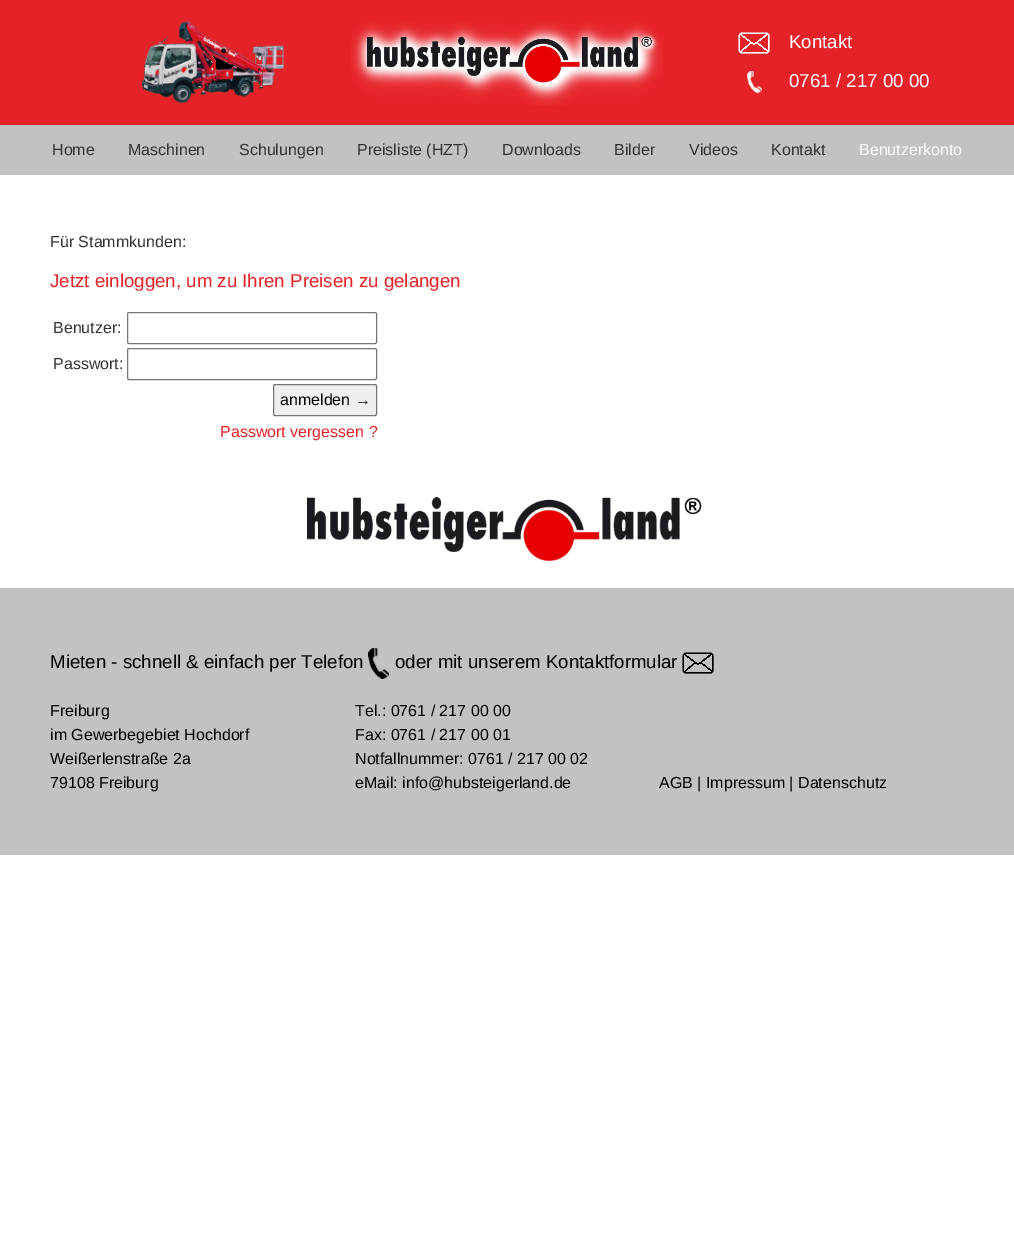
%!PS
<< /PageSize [1014 1237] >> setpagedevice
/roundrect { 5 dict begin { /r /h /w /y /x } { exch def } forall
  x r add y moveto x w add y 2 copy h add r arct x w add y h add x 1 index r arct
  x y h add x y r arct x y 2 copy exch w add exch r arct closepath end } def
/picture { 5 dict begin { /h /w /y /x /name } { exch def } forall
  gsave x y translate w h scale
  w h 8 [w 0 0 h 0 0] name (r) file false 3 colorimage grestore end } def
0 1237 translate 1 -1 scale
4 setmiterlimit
1 setgray
0 0 1014 1237 rectfill
0.902 0.133 0.161 setrgbcolor
0 0 1014 125 rectfill
(img1.rgb) 142 21 142 83 picture
(img2.rgb) 351 21 312 85 picture
(img3.rgb) 738 32 32 22 picture
/LiberationSans-Regular [18.7 0 0 -18.7 0 0] selectfont
1 setgray
789 48 moveto (Kontakt) show
(img4.rgb) 747 71 15 22 picture
789 87 moveto (0761 / 217 00 00) show
0.761 setgray
0 125 1014 50 rectfill
/LiberationSans-Regular [16 0 0 -16 0 0] selectfont
0.2 setgray
52 155 moveto (Home) show
128 155 moveto (Maschinen) show
239 155 moveto (Schulungen) show
357 155 moveto (Preisliste \(HZT\)) show
502 155 moveto (Downloads) show
614 155 moveto (Bilder) show
689 155 moveto (Videos) show
771 155 moveto (Kontakt) show
1 setgray
859 155 moveto (Benutzerkonto) show
0.2 setgray
50 247 moveto (Für Stammkunden:) show
/LiberationSans-Regular [18.7 0 0 -18.7 0 0] selectfont
0.902 0.133 0.161 setrgbcolor
50 287 moveto (Jetzt einloggen, um zu Ihren Preisen zu gelangen) show
/LiberationSans-Regular [16 0 0 -16 0 0] selectfont
0.2 setgray
53 333 moveto (Benutzer:) show
0.463 setgray
127.5 312.5 249 31 1.5 roundrect stroke
0.2 setgray
53 369 moveto (Passwort:) show
0.463 setgray
127.5 348.5 249 31 1.5 roundrect stroke
0.937 setgray
273.5 384.5 103 31 1.5 roundrect gsave fill grestore
0.463 setgray
stroke
0 setgray
280 405 moveto (anmelden →) show
0.902 0.133 0.161 setrgbcolor
220 437 moveto (Passwort vergessen ?) show
0.761 setgray
0 588 1014 267 rectfill
(img5.rgb) 307 497 395 64 picture
/LiberationSans-Regular [18.7 0 0 -18.7 0 0] selectfont
0 setgray
50 668 moveto (Mieten - schnell & einfach per Telefon) show
(img6.rgb) 368 648 21 31 picture
395 668 moveto (oder mit unserem Kontaktformular) show
(img7.rgb) 682 652 32 22 picture
/LiberationSans-Regular [16 0 0 -16 0 0] selectfont
50 716 moveto (Freiburg) show
50 740 moveto (im Gewerbegebiet Hochdorf) show
50 764 moveto (Weißerlenstraße 2a) show
50 788 moveto (79108 Freiburg) show
355 716 moveto (Tel.: 0761 / 217 00 00) show
355 740 moveto (Fax: 0761 / 217 00 01) show
355 764 moveto (Notfallnummer: 0761 / 217 00 02) show
355 788 moveto (eMail: info@hubsteigerland.de) show
659 788 moveto (AGB | Impressum | Datenschutz) show
showpage
